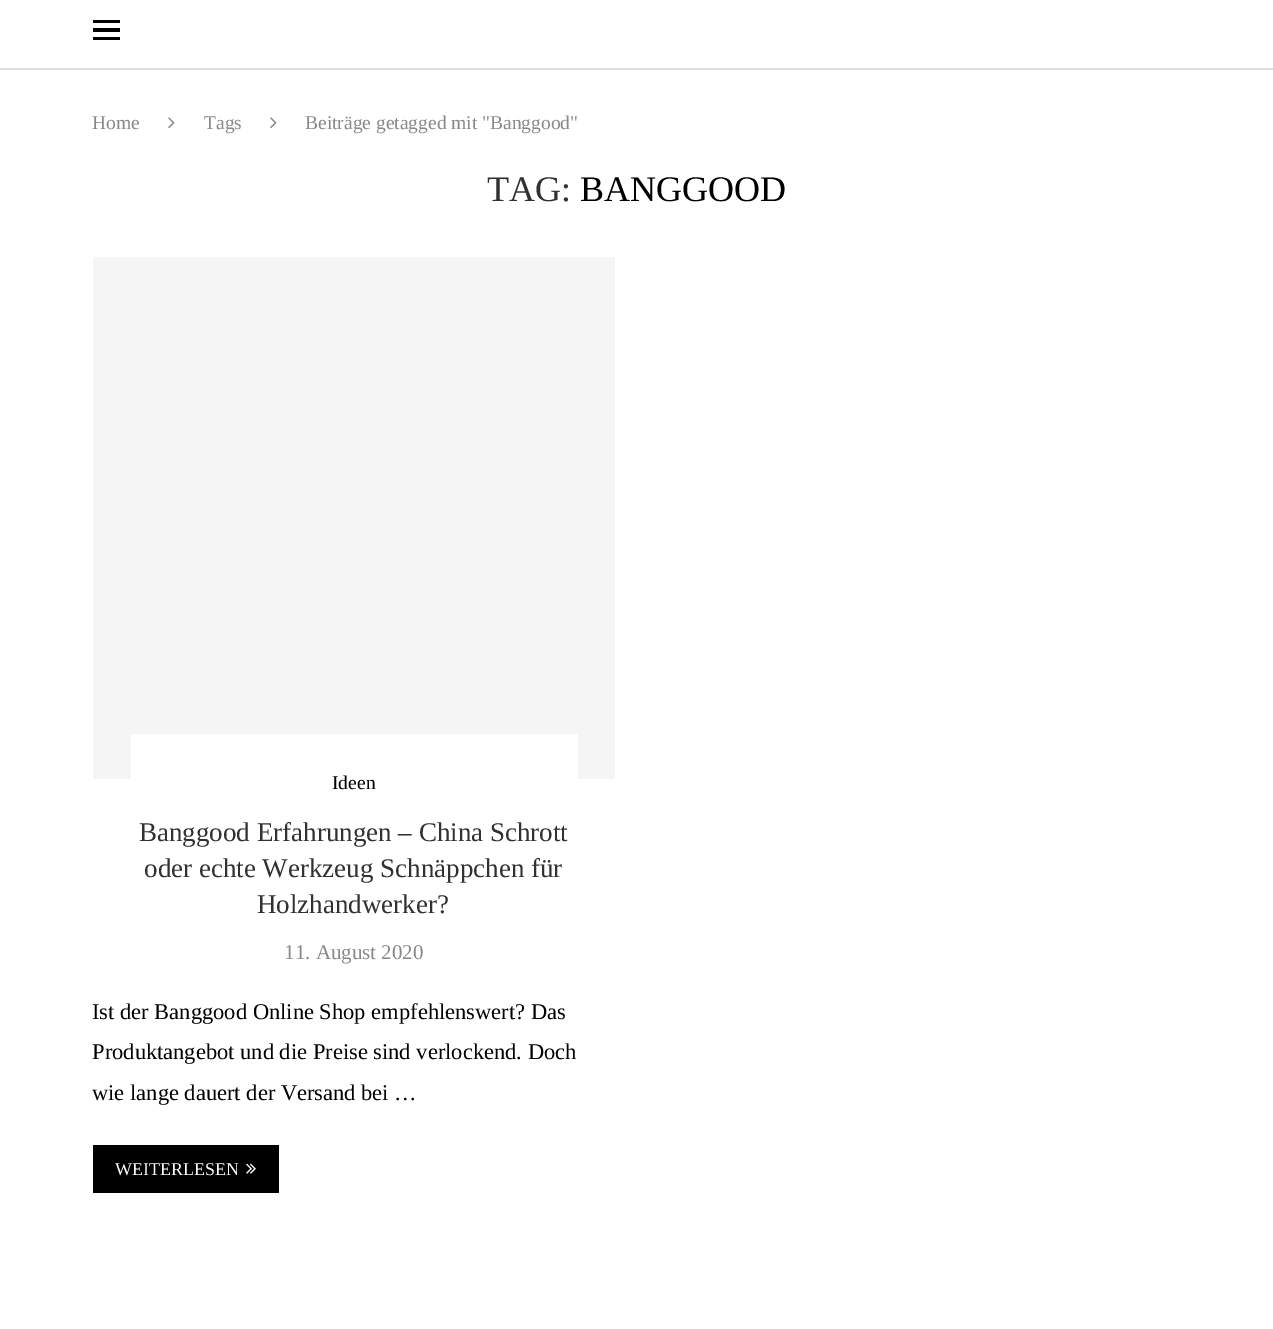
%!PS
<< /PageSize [1273 1329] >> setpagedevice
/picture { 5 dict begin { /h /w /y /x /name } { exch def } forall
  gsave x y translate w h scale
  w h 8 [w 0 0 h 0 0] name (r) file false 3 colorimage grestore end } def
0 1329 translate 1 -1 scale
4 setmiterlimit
1 setgray
0 0 1273 1329 rectfill
0.871 setgray
0 68 1273 2 rectfill
0 setgray
93 20 27 3 rectfill
93 28 27 4 rectfill
93 37 27 3 rectfill
/LiberationSerif-Regular [19.5 0 0 -19.5 0 0] selectfont
0.533 setgray
92 129 moveto (Home) show
(img1.rgb) 168 117 7 12 picture
204 129 moveto (Tags) show
(img1.rgb) 270 117 7 12 picture
305 129 moveto (Beiträge getagged mit "Banggood") show
/LiberationSerif-Regular [36 0 0 -36 0 0] selectfont
0.192 setgray
487 201 moveto (TAG:) show
0 setgray
580 201 moveto (BANGGOOD) show
0.961 setgray
93 257 522 522 rectfill
1 setgray
131 734 447 45 rectfill
/LiberationSerif-Regular [19.5 0 0 -19.5 0 0] selectfont
0 setgray
332 789 moveto (Ideen) show
/LiberationSerif-Regular [27 0 0 -27 0 0] selectfont
0.192 setgray
139 841 moveto (Banggood Erfahrungen – China Schrott) show
144 877 moveto (oder echte Werkzeug Schnäppchen für) show
257 913 moveto (Holzhandwerker?) show
/LiberationSerif-Regular [21 0 0 -21 0 0] selectfont
0.533 setgray
284 959 moveto (11. August 2020) show
/LiberationSerif-Regular [22.5 0 0 -22.5 0 0] selectfont
0 setgray
92 1019 moveto (Ist der Banggood Online Shop empfehlenswert? Das) show
92 1059 moveto (Produktangebot und die Preise sind verlockend. Doch) show
92 1100 moveto (wie lange dauert der Versand bei …) show
93 1145 186 48 rectfill
/LiberationSerif-Regular [18 0 0 -18 0 0] selectfont
1 setgray
115 1175 moveto (WEITERLESEN) show
(img2.rgb) 246 1163 10 11 picture
showpage
